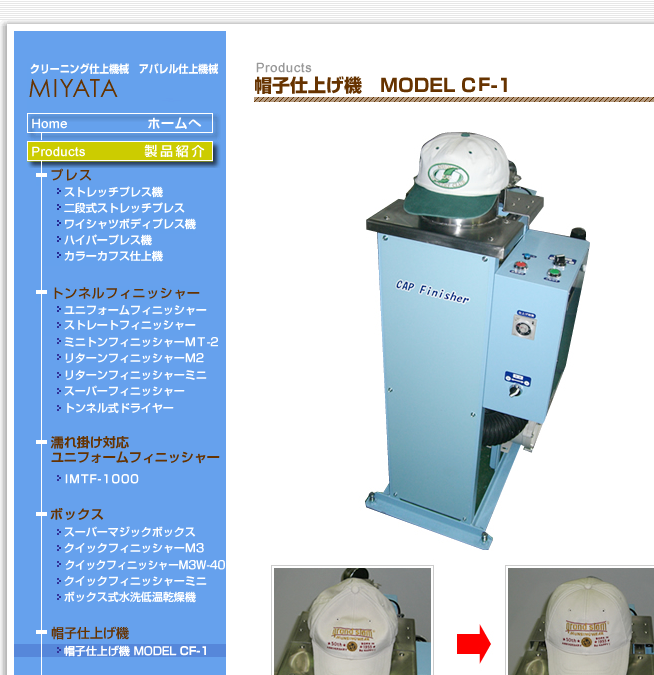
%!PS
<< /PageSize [654 675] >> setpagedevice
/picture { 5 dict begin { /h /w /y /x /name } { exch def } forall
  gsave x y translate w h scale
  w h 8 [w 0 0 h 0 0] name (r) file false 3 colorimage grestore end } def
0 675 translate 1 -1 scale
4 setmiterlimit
1 setgray
0 0 654 675 rectfill
(img1.rgb) 0 1 654 19 picture
(img2.rgb) 0 20 9 6 picture
(img3.rgb) 9 20 645 6 picture
(img4.rgb) 0 26 9 649 picture
0.4 0.631 0.929 setrgbcolor
14 31 212 644 rectfill
(img5.rgb) 27 63 194 78 picture
(img6.rgb) 27 141 194 27 picture
(img7.rgb) 36 168 56 18 picture
(img8.rgb) 41 186 122 16 picture
(img9.rgb) 41 202 144 16 picture
(img10.rgb) 41 218 155 16 picture
(img11.rgb) 41 234 111 16 picture
(img12.rgb) 41 250 122 16 picture
1 setgray
41 266 1 20 rectfill
(img13.rgb) 36 286 164 18 picture
(img14.rgb) 41 304 166 16 picture
(img15.rgb) 41 320 155 16 picture
(img16.rgb) 41 336 177 16 picture
(img17.rgb) 41 352 163 16 picture
(img18.rgb) 41 368 166 16 picture
(img19.rgb) 41 384 144 16 picture
(img20.rgb) 41 400 133 16 picture
41 416 1 20 rectfill
(img21.rgb) 36 436 184 36 picture
(img22.rgb) 41 472 98 16 picture
41 488 1 20 rectfill
(img23.rgb) 36 508 68 18 picture
(img24.rgb) 41 526 155 16 picture
(img25.rgb) 41 542 163 16 picture
(img26.rgb) 41 558 184 16 picture
(img27.rgb) 41 574 166 16 picture
(img28.rgb) 41 590 155 16 picture
41 606 1 20 rectfill
(img29.rgb) 36 626 93 18 picture
(img30.rgb) 14 644 212 16 picture
41 660 1 15 rectfill
(img31.rgb) 254 62 400 40 picture
(img32.rgb) 271 132 383 543 picture
showpage
